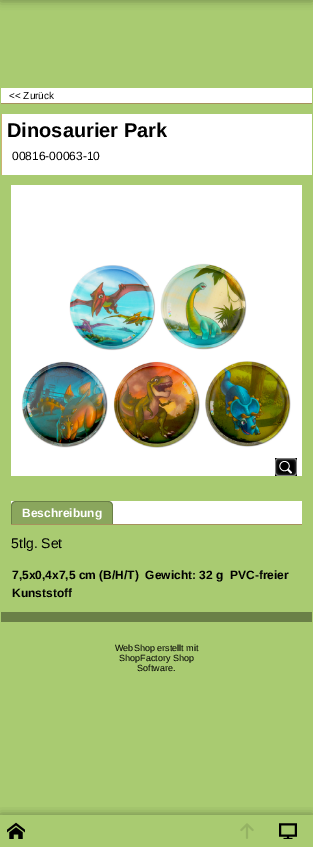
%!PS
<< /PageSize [313 847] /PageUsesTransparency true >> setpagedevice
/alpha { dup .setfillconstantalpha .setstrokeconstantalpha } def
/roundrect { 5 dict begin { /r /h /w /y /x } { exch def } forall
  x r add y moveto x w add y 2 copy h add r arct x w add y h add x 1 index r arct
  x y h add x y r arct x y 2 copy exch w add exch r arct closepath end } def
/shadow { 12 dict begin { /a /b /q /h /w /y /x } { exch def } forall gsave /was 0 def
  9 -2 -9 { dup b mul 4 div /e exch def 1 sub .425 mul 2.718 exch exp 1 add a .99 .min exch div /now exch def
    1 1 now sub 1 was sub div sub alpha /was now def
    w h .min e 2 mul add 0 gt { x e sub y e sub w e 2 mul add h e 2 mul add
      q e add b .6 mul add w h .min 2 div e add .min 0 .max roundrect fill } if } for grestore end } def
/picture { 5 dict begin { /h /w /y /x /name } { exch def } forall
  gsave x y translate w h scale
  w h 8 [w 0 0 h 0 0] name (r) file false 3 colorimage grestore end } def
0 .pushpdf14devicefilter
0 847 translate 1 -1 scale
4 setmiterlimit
0.663 0.796 0.443 setrgbcolor
0 0 313 847 rectfill
0 setgray
1 -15 311 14 0 5 0.5 shadow
1 setgray
1 88 311 15 rectfill
0.651 0.569 0.365 setrgbcolor
1 103 311 1 rectfill
/LiberationSans-Regular [10 0 0 -10 0 0] selectfont
0 setgray
9 99 moveto (<< Zurück) show
1 setgray
2 114 310 61 rectfill
0.8 0.702 0.447 setrgbcolor
1 114 1 61 rectfill
/LiberationSans-Bold [20 0 0 -20 0 0] selectfont
0 setgray
7 137 moveto (Dinosaurier Park) show
/LiberationSans-Regular [12 0 0 -12 0 0] selectfont
12 160 moveto (00816-00063-10) show
(img1.rgb) 11 185 291 291 picture
275 458 22 18 rectfill
(img2.rgb) 275 458 22 18 picture
1 setgray
11 501 291 23 rectfill
0.651 0.569 0.365 setrgbcolor
11 524 291 1 rectfill
0.541 0.651 0.365 setrgbcolor
newpath 16 502 moveto 108 502 lineto 110 502 112 504 112 506 curveto 112 524 lineto 12 524 lineto 12 506 lineto 12 504 14 502 16 502 curveto closepath fill
0.416 0.502 0.278 setrgbcolor
newpath 16 501 moveto 108 501 lineto 111 501 113 503 113 506 curveto 113 524 lineto 11 524 lineto 11 506 lineto 11 503 13 501 16 501 curveto closepath 16 502 moveto 108 502 lineto 110 502 112 504 112 506 curveto 112 524 lineto 12 524 lineto 12 506 lineto 12 504 14 502 16 502 curveto closepath eofill
/LiberationSans-Bold [12 0 0 -12 0 0] selectfont
1 setgray
22 517 moveto (Beschreibung) show
/LiberationSans-Regular [14 0 0 -14 0 0] selectfont
0 setgray
11 548 moveto (5tlg. Set) show
/LiberationSans-Bold [12 0 0 -12 0 0] selectfont
12 579 moveto (7,5x0,4x7,5 cm \(B/H/T\)  Gewicht: 32 g  PVC-freier) show
12 597 moveto (Kunststoff) show
0.416 0.502 0.278 setrgbcolor
1 612 311 10 rectfill
/LiberationSans-Regular [9 0 0 -9 0 0] selectfont
0 setgray
115 651 moveto (WebShop erstellt mit) show
119 661 moveto (ShopFactory Shop) show
137 671 moveto (Software.) show
gsave
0 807 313 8 rectclip
1 816 311 30 0 5 0.5 shadow
grestore
(img3.rgb) 7 822 18 17 picture
(img4.rgb) 240 823 14 16 picture
(img5.rgb) 279 823 18 16 picture
.poppdf14devicefilter showpage
